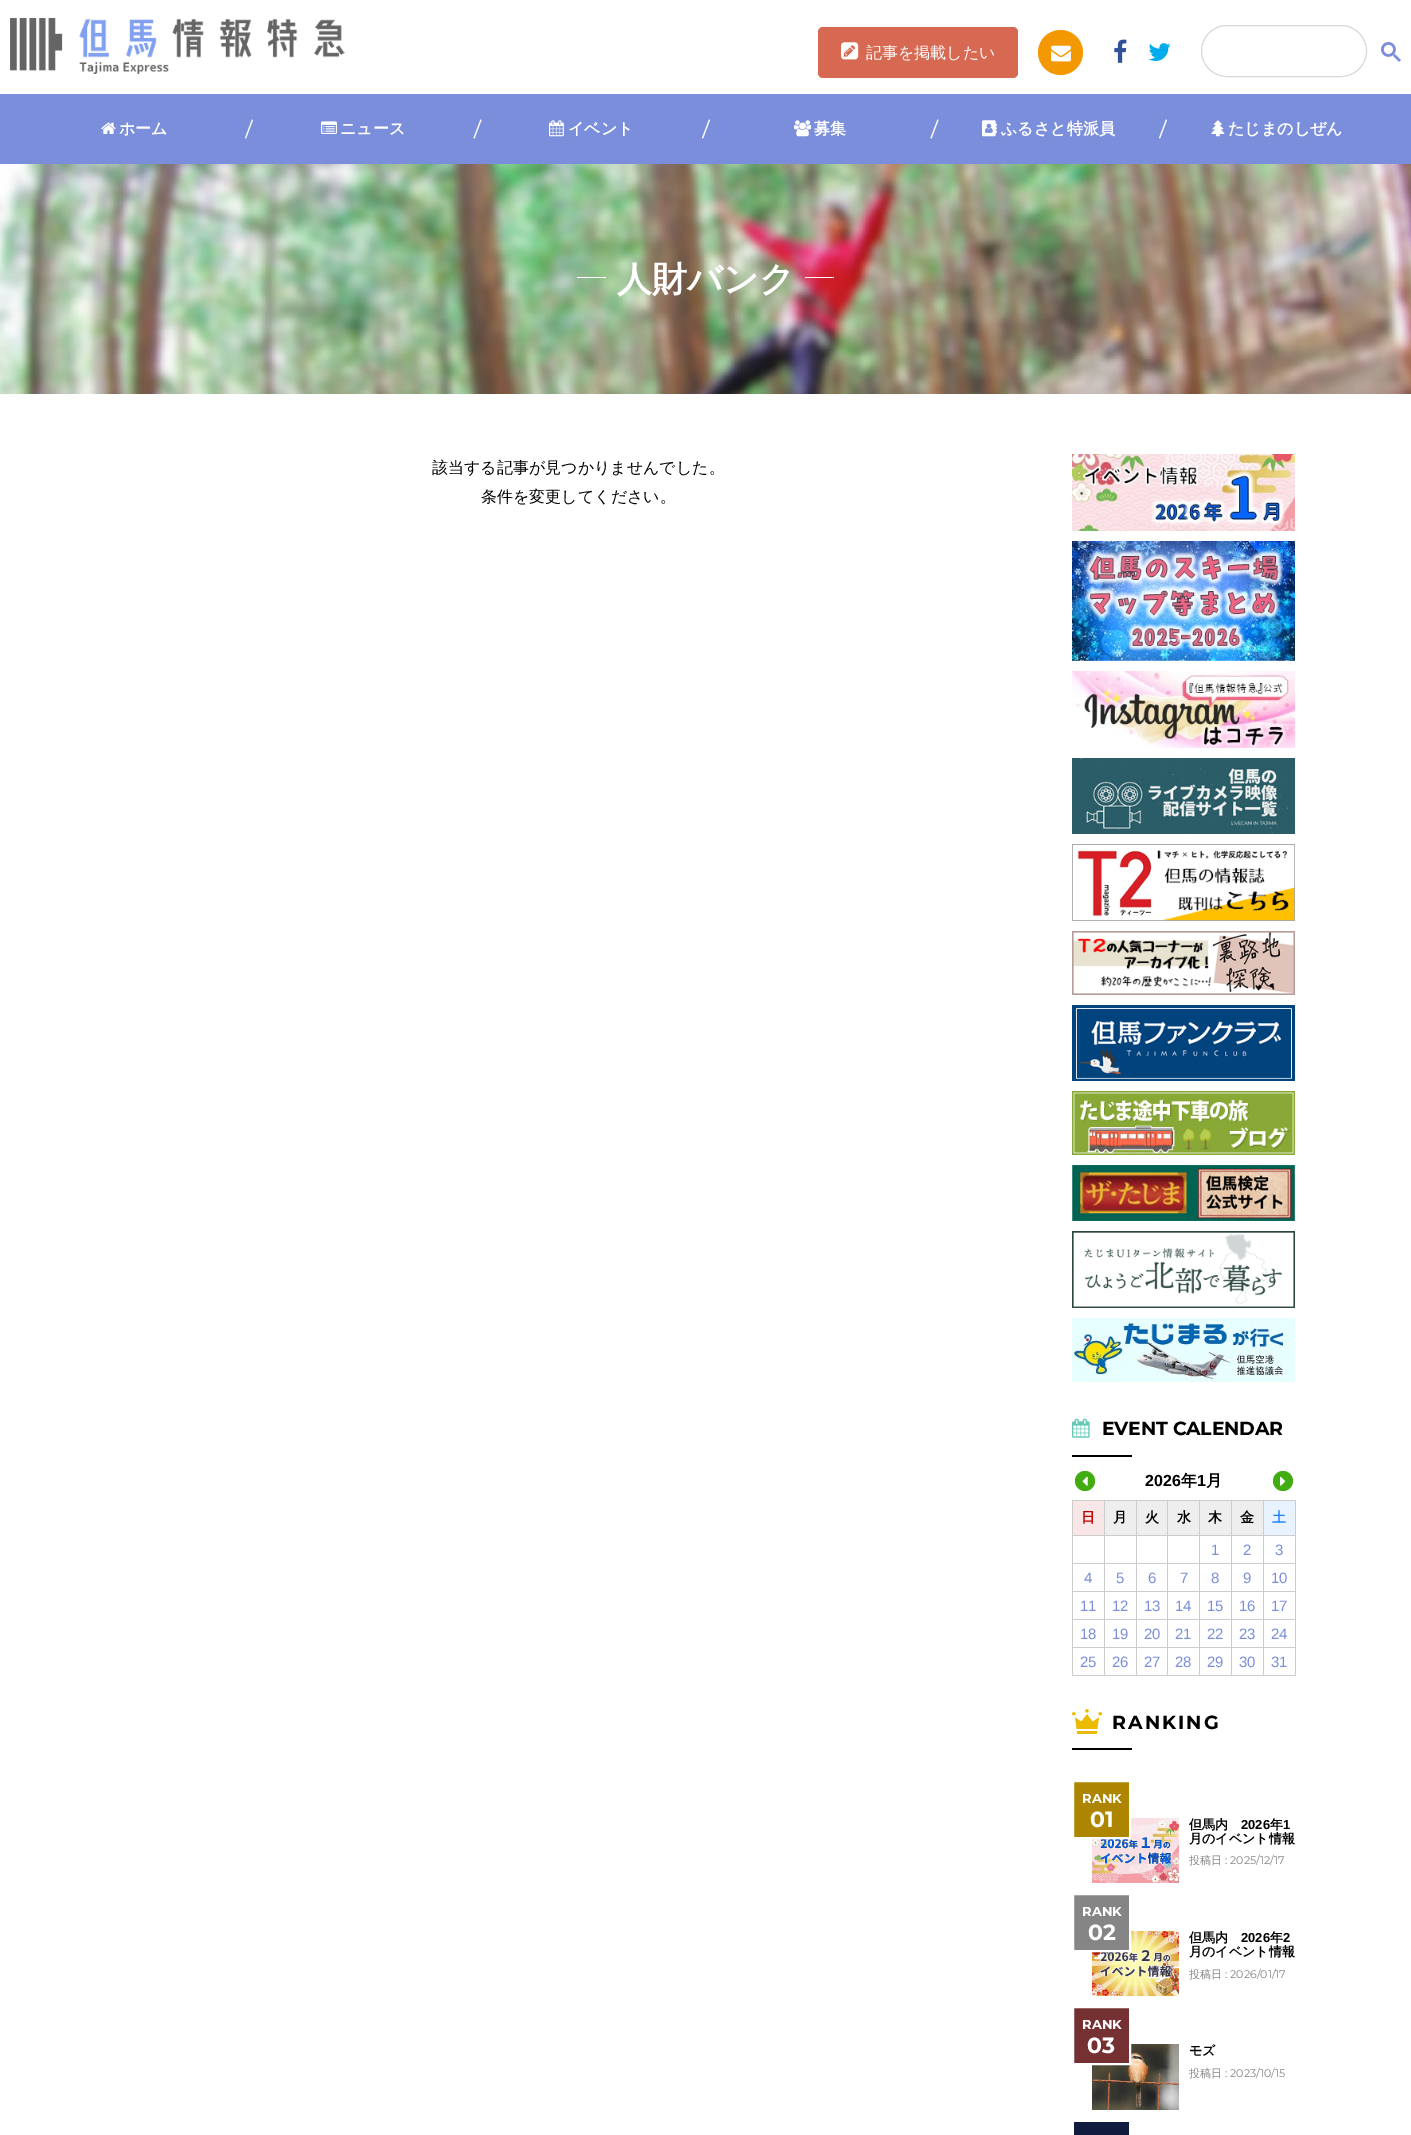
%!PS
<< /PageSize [1411 2135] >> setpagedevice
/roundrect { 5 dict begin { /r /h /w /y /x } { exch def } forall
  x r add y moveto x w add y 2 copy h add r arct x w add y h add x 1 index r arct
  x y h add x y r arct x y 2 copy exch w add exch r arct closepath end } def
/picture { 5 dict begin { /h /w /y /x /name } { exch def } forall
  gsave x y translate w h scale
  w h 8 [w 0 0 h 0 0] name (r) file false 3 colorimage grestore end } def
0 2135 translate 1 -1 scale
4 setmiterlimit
1 setgray
0 0 1411 2135 rectfill
(img1.rgb) 10 18 335 56 picture
0.843 0.408 0.318 setrgbcolor
818 27 200 51 5 roundrect fill
(img2.rgb) 841 42 18 18 picture
/WenQuanYiZenHei-Medium [16 0 0 -16 0 0] selectfont
1 setgray
866 58 moveto (記事を掲載したい) show
0.953 0.596 0 setrgbcolor
newpath 1060.5 52.5 22.5 0 360 arc closepath fill
(img3.rgb) 1051 45 20 17 picture
(img4.rgb) 1114 39 13 24 picture
(img5.rgb) 1148 43 23 18 picture
0.851 setgray
1201.5 25.5 165 51 25.5 roundrect stroke
(img6.rgb) 1381 42 20 20 picture
0.482 0.557 0.859 setrgbcolor
0 94 1411 70 rectfill
(img7.rgb) 101 122 15 12 picture
/WenQuanYiZenHei-Bold [16 0 0 -16 0 0] selectfont
1 setgray
119 134 moveto (ホーム) show
newpath 252 119.5 moveto 253 120 lineto 246 138.5 lineto 245 138 lineto closepath fill
(img8.rgb) 321 121 16 13 picture
340 134 moveto (ニュース) show
newpath 480.5 119.5 moveto 481.5 120 lineto 474.5 138.5 lineto 473.5 138 lineto closepath fill
(img9.rgb) 549 120 15 17 picture
568 134 moveto (イベント) show
newpath 709 119.5 moveto 710 120 lineto 703 138.5 lineto 702 138 lineto closepath fill
(img10.rgb) 794 120 18 17 picture
814 134 moveto (募集) show
newpath 937.5 119.5 moveto 938.5 120 lineto 931.5 138.5 lineto 930.5 138 lineto closepath fill
(img11.rgb) 982 120 15 17 picture
1001 134 moveto (ふるさと特派員) show
newpath 1166 119.5 moveto 1167 120 lineto 1160 138.5 lineto 1159 138 lineto closepath fill
(img12.rgb) 1211 120 14 17 picture
1228 134 moveto (たじまのしぜん) show
(img13.rgb) 0 164 1411 230 picture
577 277 29 1 rectfill
/WenQuanYiZenHei-Bold [35 0 0 -35 0 0] selectfont
617 291 moveto (人財バンク) show
805 277 29 1 rectfill
/WenQuanYiZenHei-Medium [16 0 0 -16 0 0] selectfont
0 setgray
432 473 moveto (該当する記事が見つかりませんでした。) show
481 502 moveto (条件を変更してください。) show
(img14.rgb) 1072 454 223 77 picture
(img15.rgb) 1072 541 223 120 picture
(img16.rgb) 1072 671 223 77 picture
(img17.rgb) 1072 758 223 76 picture
(img18.rgb) 1072 844 223 77 picture
(img19.rgb) 1072 931 223 64 picture
(img20.rgb) 1072 1005 223 76 picture
(img21.rgb) 1072 1091 223 64 picture
(img22.rgb) 1072 1165 223 56 picture
(img23.rgb) 1072 1231 223 77 picture
(img24.rgb) 1072 1318 223 64 picture
(img25.rgb) 1072 1418 18 20 picture
/Montserrat-Bold [19 0 0 -19 0 0] selectfont
1102 1435 moveto -0.25 0 (EVENT CALENDAR) ashow
1072 1455 60 2 rectfill
0.255 0.678 0.071 setrgbcolor
newpath 1085 1481 10 0 360 arc closepath fill
(img26.rgb) 1082 1476 6 10 picture
/LiberationSans-Bold [16 0 0 -16 0 0] selectfont
0 setgray
1145 1486 moveto (2026) show
/WenQuanYiZenHei-Bold [16 0 0 -16 0 0] selectfont
1181 1486 moveto (年) show
/LiberationSans-Bold [16 0 0 -16 0 0] selectfont
1197 1486 moveto (1) show
/WenQuanYiZenHei-Bold [16 0 0 -16 0 0] selectfont
1206 1486 moveto (月) show
0.255 0.678 0.071 setrgbcolor
newpath 1283 1481 10 0 360 arc closepath fill
(img27.rgb) 1280 1476 6 10 picture
0.976 0.902 0.902 setrgbcolor
1073 1501 31 34 rectfill
0.8 setgray
1263 1500 33 1 rectfill
1263 1535 33 1 rectfill
1263 1563 33 1 rectfill
1263 1591 33 1 rectfill
1263 1619 33 1 rectfill
1263 1647 33 1 rectfill
1295 1647 1 29 rectfill
1263 1675 33 1 rectfill
1263 1647 1 29 rectfill
1231 1647 33 1 rectfill
1263 1619 1 29 rectfill
1231 1619 33 1 rectfill
1263 1591 1 29 rectfill
1231 1591 33 1 rectfill
1263 1563 1 29 rectfill
1231 1563 33 1 rectfill
1263 1535 1 29 rectfill
1231 1535 33 1 rectfill
1263 1500 1 36 rectfill
1231 1500 33 1 rectfill
1231 1675 33 1 rectfill
1231 1647 1 29 rectfill
1199 1647 33 1 rectfill
1231 1619 1 29 rectfill
1199 1619 33 1 rectfill
1231 1591 1 29 rectfill
1199 1591 33 1 rectfill
1231 1563 1 29 rectfill
1199 1563 33 1 rectfill
1231 1535 1 29 rectfill
1199 1535 33 1 rectfill
1231 1500 1 36 rectfill
1199 1500 33 1 rectfill
1199 1675 33 1 rectfill
1199 1647 1 29 rectfill
1167 1647 33 1 rectfill
1199 1619 1 29 rectfill
1167 1619 33 1 rectfill
1199 1591 1 29 rectfill
1167 1591 33 1 rectfill
1199 1563 1 29 rectfill
1167 1563 33 1 rectfill
1199 1535 1 29 rectfill
1167 1535 33 1 rectfill
1199 1500 1 36 rectfill
1167 1500 33 1 rectfill
1167 1675 33 1 rectfill
1167 1647 1 29 rectfill
1136 1647 32 1 rectfill
1167 1619 1 29 rectfill
1136 1619 32 1 rectfill
1167 1591 1 29 rectfill
1136 1591 32 1 rectfill
1167 1563 1 29 rectfill
1136 1563 32 1 rectfill
1167 1535 1 29 rectfill
1136 1535 32 1 rectfill
1167 1500 1 36 rectfill
1136 1500 32 1 rectfill
1136 1675 32 1 rectfill
1136 1647 1 29 rectfill
1104 1647 33 1 rectfill
1136 1619 1 29 rectfill
1104 1619 33 1 rectfill
1136 1591 1 29 rectfill
1104 1591 33 1 rectfill
1136 1563 1 29 rectfill
1104 1563 33 1 rectfill
1136 1535 1 29 rectfill
1104 1535 33 1 rectfill
1136 1500 1 36 rectfill
1104 1500 33 1 rectfill
1104 1675 33 1 rectfill
1104 1647 1 29 rectfill
1072 1647 33 1 rectfill
1104 1619 1 29 rectfill
1072 1619 33 1 rectfill
1104 1591 1 29 rectfill
1072 1591 33 1 rectfill
1104 1563 1 29 rectfill
1072 1563 33 1 rectfill
1104 1535 1 29 rectfill
1072 1535 33 1 rectfill
1104 1500 1 36 rectfill
1072 1500 33 1 rectfill
1072 1675 33 1 rectfill
1072 1647 1 29 rectfill
1072 1619 1 29 rectfill
1072 1591 1 29 rectfill
1072 1563 1 29 rectfill
1072 1535 1 29 rectfill
1072 1500 1 36 rectfill
/WenQuanYiZenHei-Bold [14 0 0 -14 0 0] selectfont
0.749 0 0 setrgbcolor
1081 1522 moveto (日) show
0.933 setgray
1105 1501 31 34 rectfill
0 setgray
1113 1522 moveto (月) show
0.933 setgray
1137 1501 30 34 rectfill
0 setgray
1145 1522 moveto (火) show
0.933 setgray
1168 1501 31 34 rectfill
0 setgray
1177 1522 moveto (水) show
0.933 setgray
1200 1501 31 34 rectfill
0 setgray
1208 1522 moveto (木) show
0.933 setgray
1232 1501 31 34 rectfill
0 setgray
1240 1522 moveto (金) show
0.914 0.949 1 setrgbcolor
1264 1501 31 34 rectfill
0.8 setgray
1295 1619 1 29 rectfill
1295 1591 1 29 rectfill
1295 1563 1 29 rectfill
1295 1535 1 29 rectfill
1295 1500 1 36 rectfill
0.118 0.502 1 setrgbcolor
1272 1522 moveto (土) show
/LiberationSans-Regular [15 0 0 -15 0 0] selectfont
0.482 0.557 0.859 setrgbcolor
1211 1555 moveto (1) show
1243 1555 moveto (2) show
1275 1555 moveto (3) show
1084 1583 moveto (4) show
1116 1583 moveto (5) show
1148 1583 moveto (6) show
1180 1583 moveto (7) show
1211 1583 moveto (8) show
1243 1583 moveto (9) show
1271 1583 moveto (10) show
1080 1611 moveto (11) show
1112 1611 moveto (12) show
1144 1611 moveto (13) show
1175 1611 moveto (14) show
1207 1611 moveto (15) show
1239 1611 moveto (16) show
1271 1611 moveto (17) show
1080 1639 moveto (18) show
1112 1639 moveto (19) show
1144 1639 moveto (20) show
1175 1639 moveto (21) show
1207 1639 moveto (22) show
1239 1639 moveto (23) show
1271 1639 moveto (24) show
1080 1667 moveto (25) show
1112 1667 moveto (26) show
1144 1667 moveto (27) show
1175 1667 moveto (28) show
1207 1667 moveto (29) show
1239 1667 moveto (30) show
1271 1667 moveto (31) show
(img28.rgb) 1072 1709 30 25 picture
/Montserrat-Bold [19 0 0 -19 0 0] selectfont
0 setgray
1112 1729 moveto 2 0 (RANKING) ashow
1072 1748 60 2 rectfill
(img29.rgb) 1092 1818 87 65 picture
0.678 0.522 0 setrgbcolor
newpath 1073 1781 moveto 1130 1781 lineto 1130 1838 lineto 1073 1838 lineto closepath gsave fill grestore
1 setgray
2 setlinewidth
stroke
/Montserrat-Bold [13 0 0 -13 0 0] selectfont
1082 1803 moveto (RANK) show
/Montserrat-Bold [22 0 0 -22 0 0] selectfont
1090 1827 moveto (01) show
/WenQuanYiZenHei-Bold [13 0 0 -13 0 0] selectfont
0 setgray
1189 1829 moveto (但馬内) show
/LiberationSans-Bold [13 0 0 -13 0 0] selectfont
1241 1829 moveto (2026) show
/WenQuanYiZenHei-Bold [13 0 0 -13 0 0] selectfont
1270 1829 moveto (年) show
/LiberationSans-Bold [13 0 0 -13 0 0] selectfont
1283 1829 moveto (1) show
/WenQuanYiZenHei-Bold [13 0 0 -13 0 0] selectfont
1189 1843 moveto (月のイベント情報) show
/WenQuanYiZenHei-Medium [11 0 0 -11 0 0] selectfont
0.522 setgray
1189 1864 moveto (投稿日) show
/Montserrat-Regular [11 0 0 -11 0 0] selectfont
1225 1864 moveto (: 2025/12/17) show
(img30.rgb) 1092 1931 87 65 picture
newpath 1073 1894 moveto 1130 1894 lineto 1130 1951 lineto 1073 1951 lineto closepath gsave fill grestore
1 setgray
stroke
/Montserrat-Bold [13 0 0 -13 0 0] selectfont
1082 1916 moveto (RANK) show
/Montserrat-Bold [22 0 0 -22 0 0] selectfont
1088 1940 moveto (02) show
/WenQuanYiZenHei-Bold [13 0 0 -13 0 0] selectfont
0 setgray
1189 1942 moveto (但馬内) show
/LiberationSans-Bold [13 0 0 -13 0 0] selectfont
1241 1942 moveto (2026) show
/WenQuanYiZenHei-Bold [13 0 0 -13 0 0] selectfont
1270 1942 moveto (年) show
/LiberationSans-Bold [13 0 0 -13 0 0] selectfont
1283 1942 moveto (2) show
/WenQuanYiZenHei-Bold [13 0 0 -13 0 0] selectfont
1189 1956 moveto (月のイベント情報) show
/WenQuanYiZenHei-Medium [11 0 0 -11 0 0] selectfont
0.522 setgray
1189 1978 moveto (投稿日) show
/Montserrat-Regular [11 0 0 -11 0 0] selectfont
1225 1978 moveto (: 2026/01/17) show
(img31.rgb) 1092 2044 87 66 picture
0.459 0.192 0.196 setrgbcolor
newpath 1073 2007 moveto 1130 2007 lineto 1130 2064 lineto 1073 2064 lineto closepath gsave fill grestore
1 setgray
stroke
/Montserrat-Bold [13 0 0 -13 0 0] selectfont
1082 2029 moveto (RANK) show
/Montserrat-Bold [22 0 0 -22 0 0] selectfont
1087 2053 moveto (03) show
/WenQuanYiZenHei-Bold [13 0 0 -13 0 0] selectfont
0 setgray
1189 2055 moveto (モズ) show
/WenQuanYiZenHei-Medium [11 0 0 -11 0 0] selectfont
0.522 setgray
1189 2077 moveto (投稿日) show
/Montserrat-Regular [11 0 0 -11 0 0] selectfont
1225 2077 moveto (: 2023/10/15) show
0.067 0.106 0.239 setrgbcolor
1074 2122 55 13 rectfill
showpage
